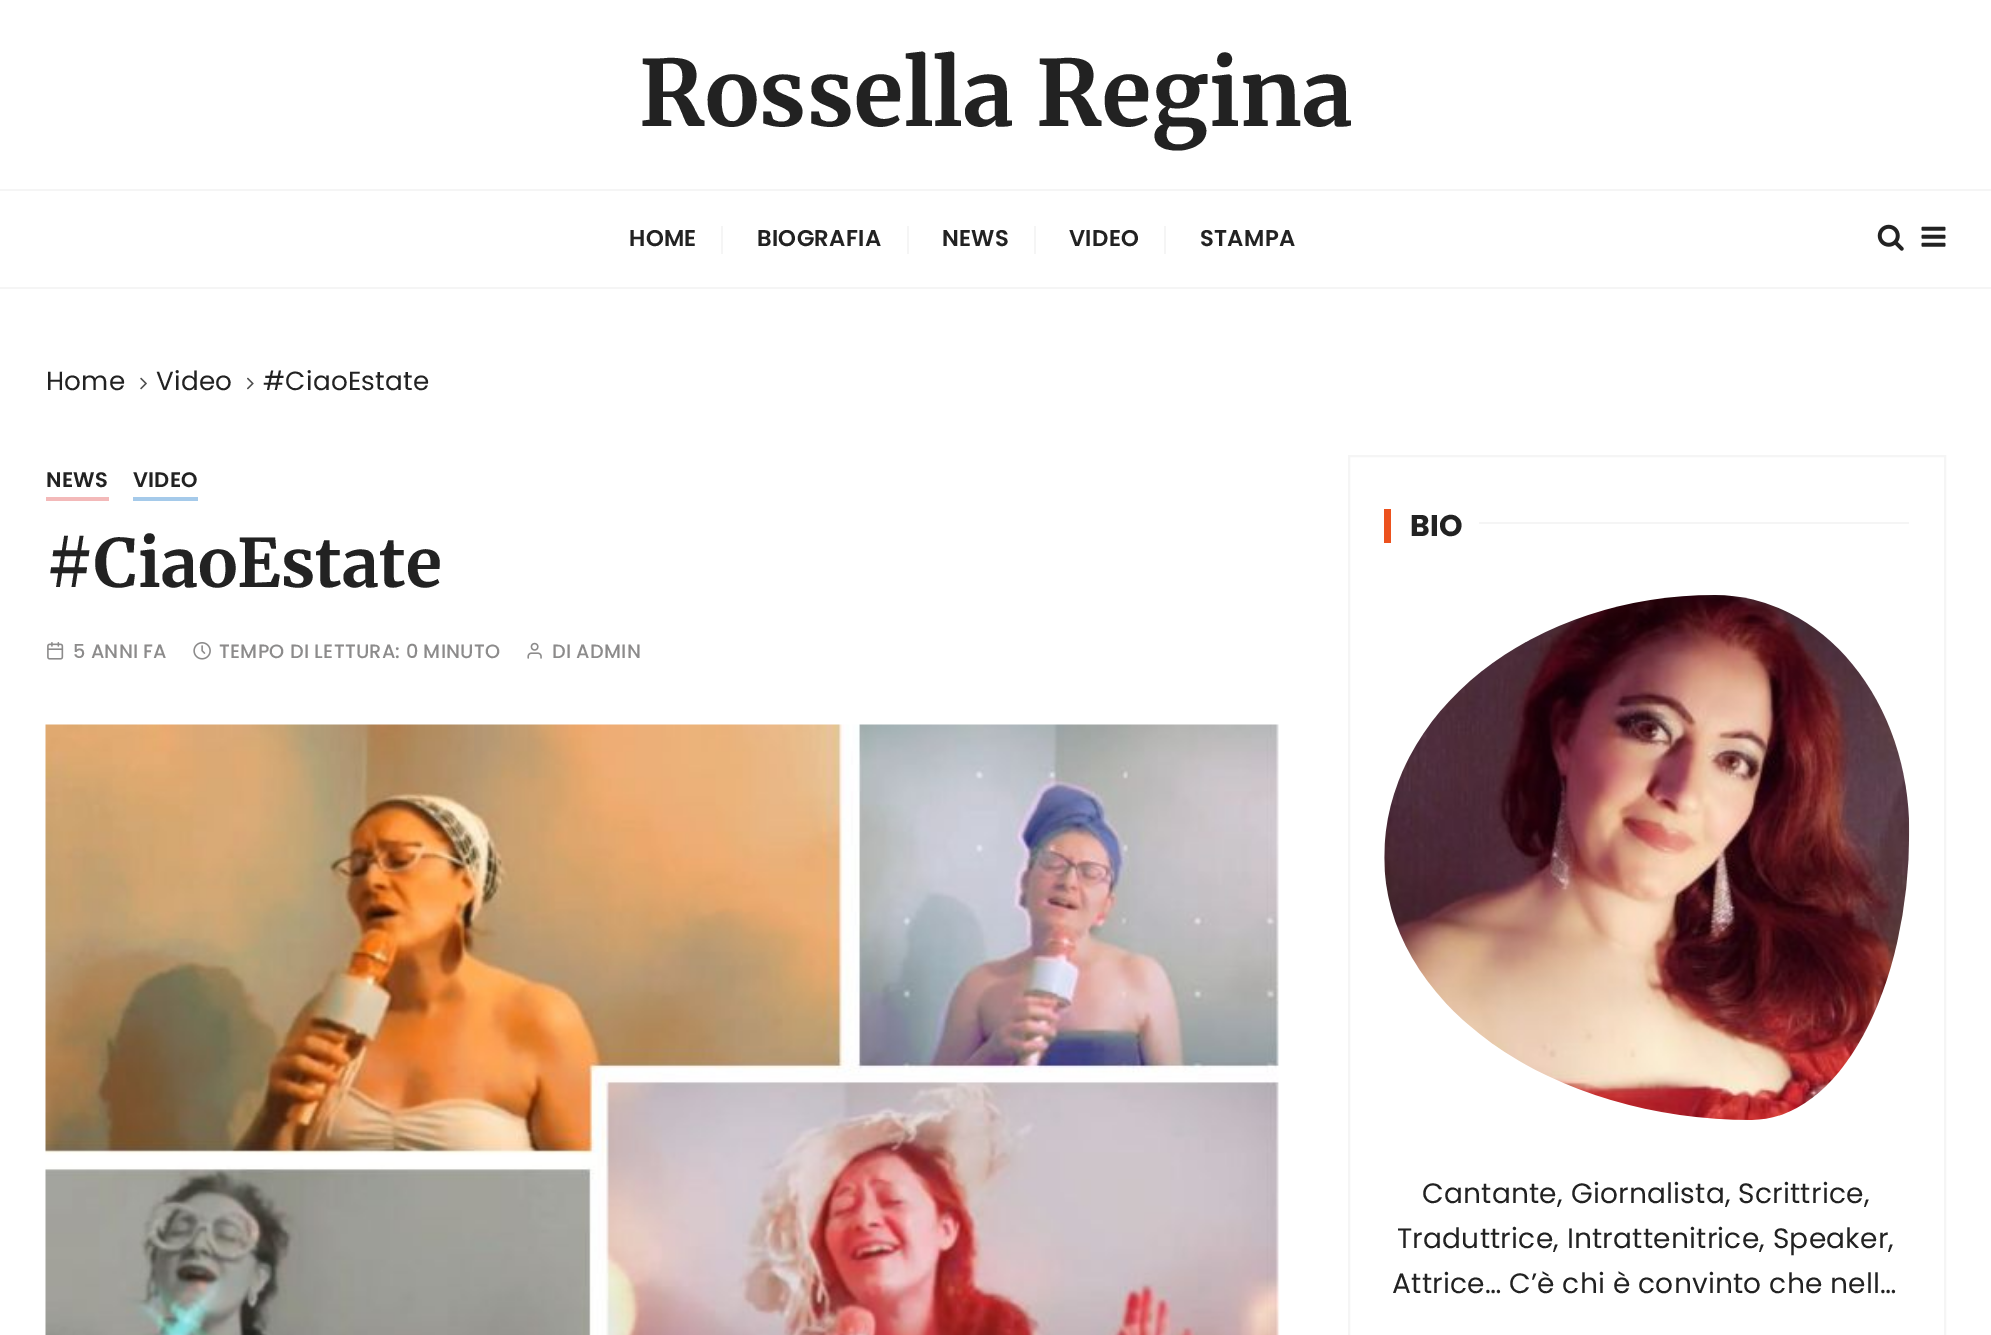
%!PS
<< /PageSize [1991 1335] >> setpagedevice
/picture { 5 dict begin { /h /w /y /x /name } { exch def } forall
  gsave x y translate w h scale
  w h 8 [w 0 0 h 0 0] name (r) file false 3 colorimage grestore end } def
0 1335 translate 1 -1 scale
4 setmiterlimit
1 setgray
0 0 1991 1335 rectfill
/Merriweather-Bold [91 0 0 -91 0 0] selectfont
0.133 setgray
639 126 moveto 0.25 0 (Rossella Regina) ashow
0.961 setgray
0 189 1991 2 rectfill
0 287 1991 2 rectfill
/Poppins-SemiBold [22.75 0 0 -22.75 0 0] selectfont
0.133 setgray
629 246 moveto 0.25 0 (HOME) ashow
0.961 setgray
721 226 2 28 rectfill
0.133 setgray
757 246 moveto 0.25 0 (BIOGRAFIA) ashow
0.961 setgray
907 226 2 28 rectfill
0.133 setgray
942 246 moveto 0.25 0 (NEWS) ashow
0.961 setgray
1034 226 2 28 rectfill
0.133 setgray
1069 246 moveto 0.25 0 (VIDEO) ashow
0.961 setgray
1164 226 2 28 rectfill
0.133 setgray
1200 246 moveto 0.25 0 (STAMPA) ashow
(img1.rgb) 1877 224 27 27 picture
(img2.rgb) 1921 226 25 21 picture
/Poppins-Regular [26.25 0 0 -26.25 0 0] selectfont
46 390 moveto 0.25 0 (Home) ashow
(img3.rgb) 140 377 7 13 picture
156 390 moveto 0.25 0 (Video) ashow
(img4.rgb) 247 377 7 13 picture
263 390 moveto 0.25 0 (#CiaoEstate) ashow
/Poppins-SemiBold [21 0 0 -21 0 0] selectfont
46 487 moveto 0.25 0 (NEWS) ashow
0.953 0.725 0.725 setrgbcolor
46 497 63 4 rectfill
0.133 setgray
133 487 moveto 0.25 0 (VIDEO) ashow
0.647 0.792 0.918 setrgbcolor
133 497 65 4 rectfill
/Merriweather-Bold [66.5 0 0 -66.5 0 0] selectfont
0.133 setgray
46 587 moveto (#CiaoEstate) show
(img5.rgb) 47 642 17 18 picture
/Poppins-Medium [19.25 0 0 -19.25 0 0] selectfont
0.549 0.545 0.545 setrgbcolor
73 658 moveto 0.25 0 (5 ANNI FA) ashow
(img6.rgb) 193 642 18 18 picture
219 658 moveto 0.25 0 (TEMPO DI LETTURA: 0 MINUTO) ashow
(img7.rgb) 527 642 15 17 picture
552 658 moveto 0.25 0 (DI ADMIN) ashow
(img8.rgb) 45 724 1235 611 picture
0.961 setgray
2 setlinewidth
1349 456 596 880 rectstroke
0.925 0.322 0.118 setrgbcolor
1384 509 7 34 rectfill
/Poppins-Bold [30 0 0 -30 0 0] selectfont
0.133 setgray
1410 536 moveto (BIO) show
0.961 setgray
1479 522 430 2 rectfill
(img9.rgb) 1384 595 526 525 picture
/Poppins-Regular [28 0 0 -28 0 0] selectfont
0.133 setgray
1422 1203 moveto 0.25 0 (Cantante, Giornalista, Scrittrice,) ashow
1397 1248 moveto 0.25 0 (Traduttrice, Intrattenitrice, Speaker,) ashow
1392 1293 moveto 0.25 0 (Attrice… C’è chi è convinto che nell…) ashow
showpage
